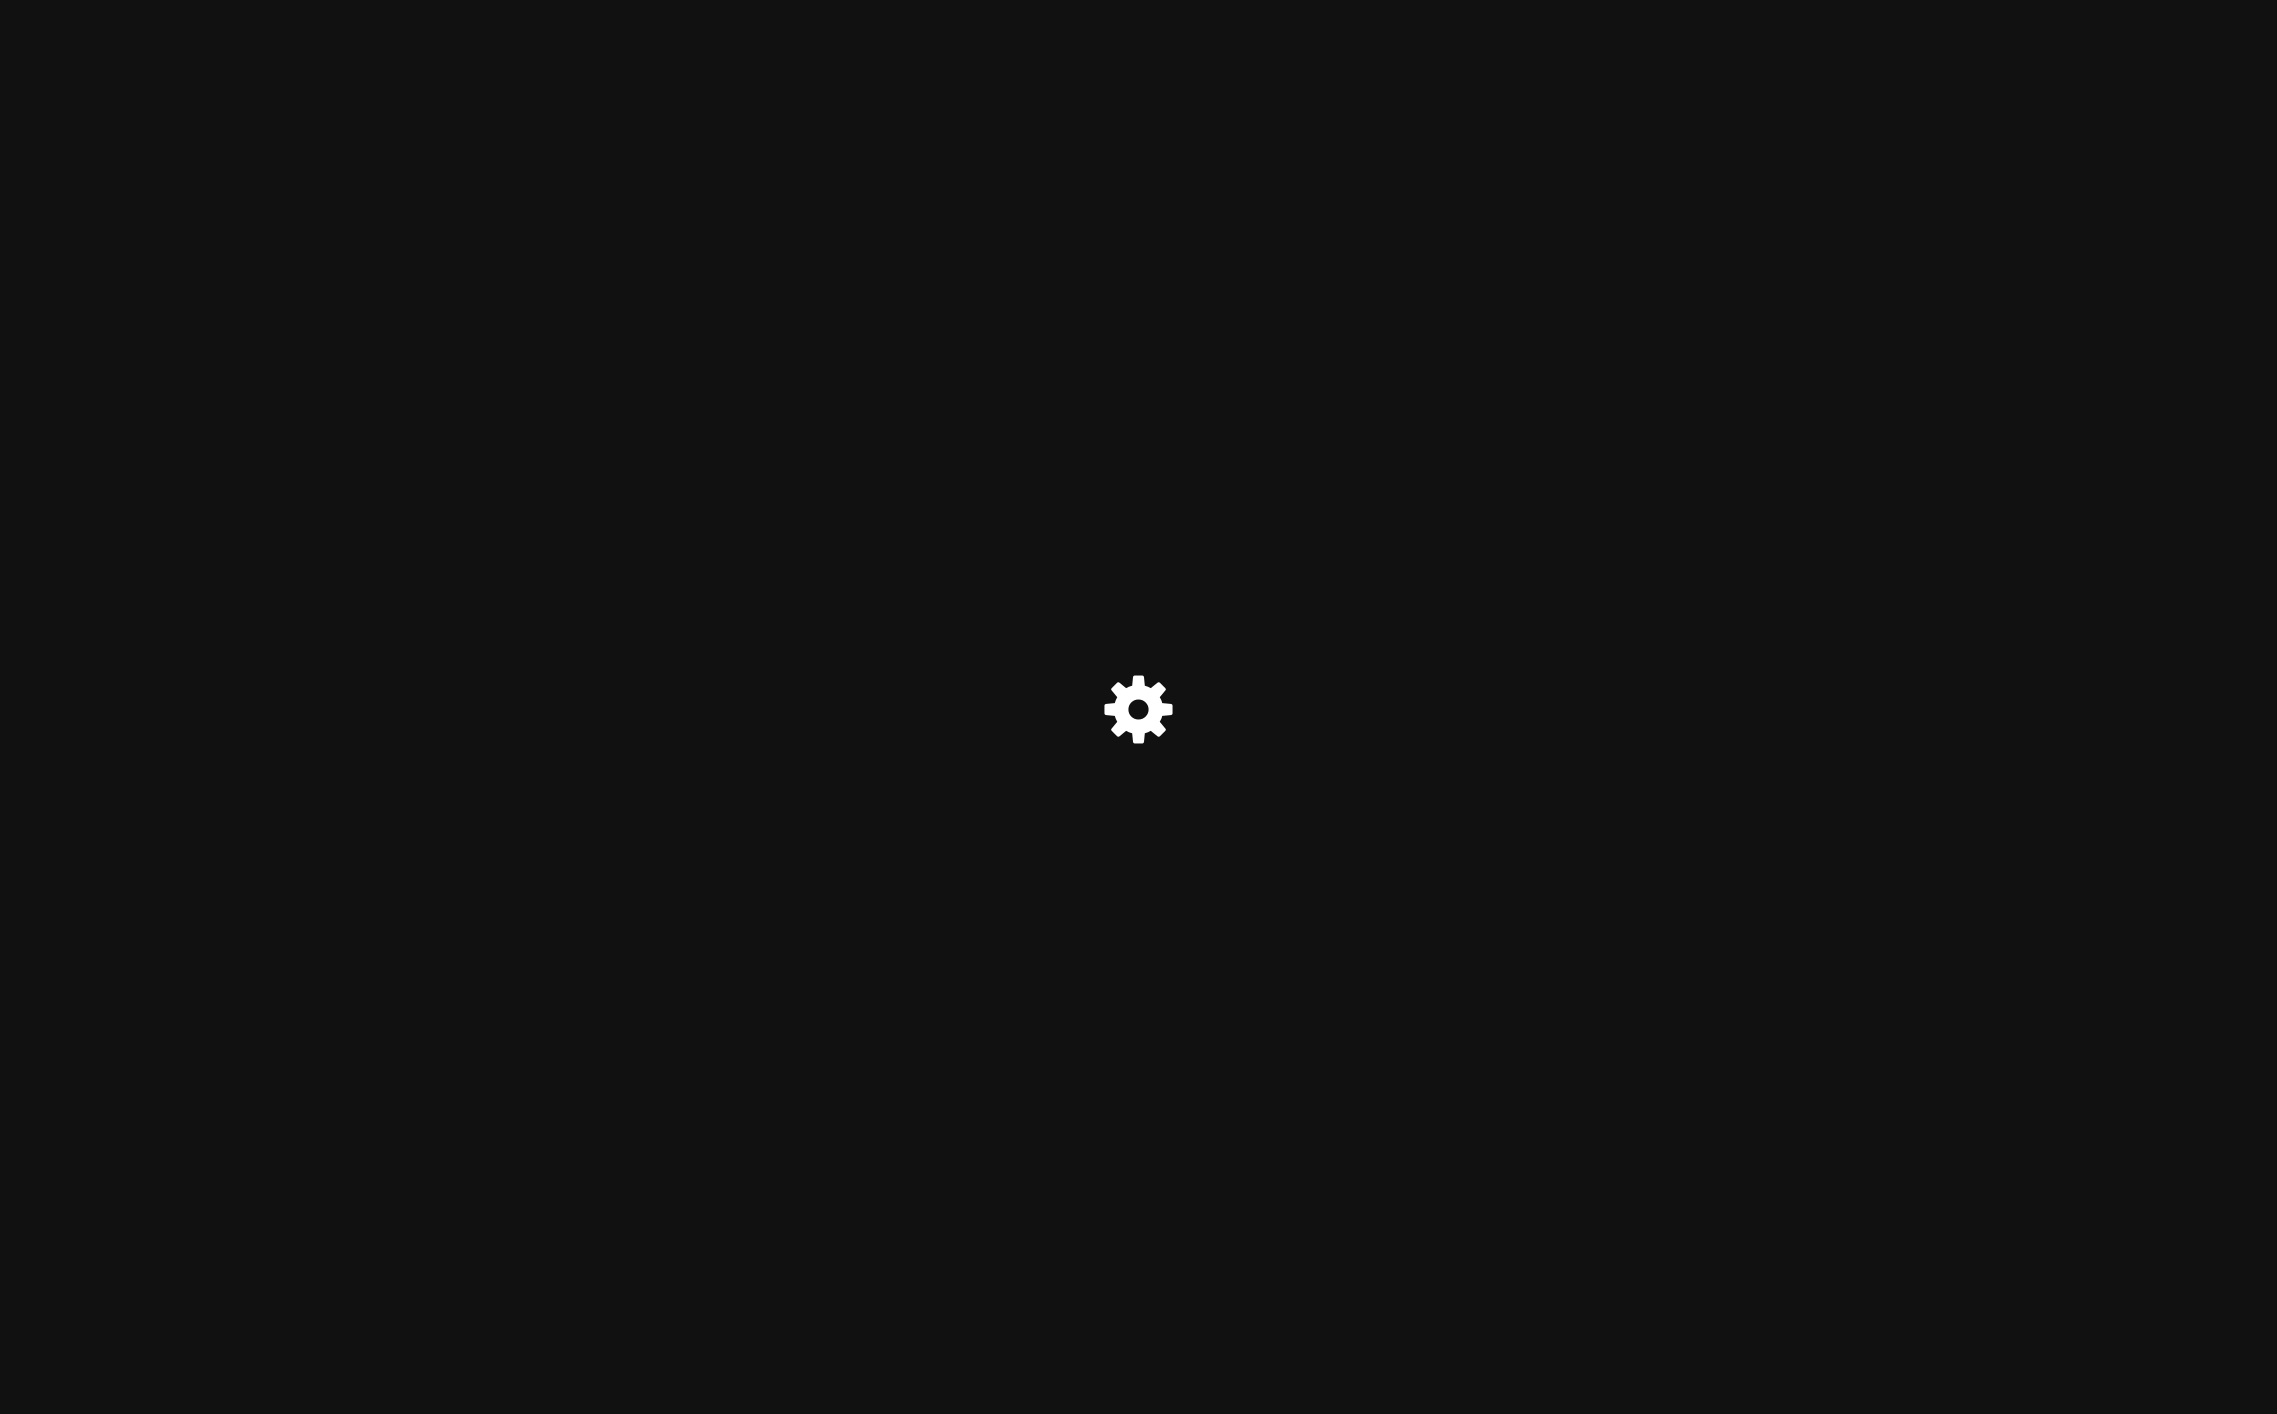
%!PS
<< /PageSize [2277 1414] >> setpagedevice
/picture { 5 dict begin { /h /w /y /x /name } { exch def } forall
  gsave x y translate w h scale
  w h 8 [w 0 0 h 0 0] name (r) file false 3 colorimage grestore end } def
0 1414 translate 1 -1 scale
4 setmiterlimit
0.067 setgray
0 0 2277 1414 rectfill
(img1.rgb) 1104 675 69 69 picture
showpage
